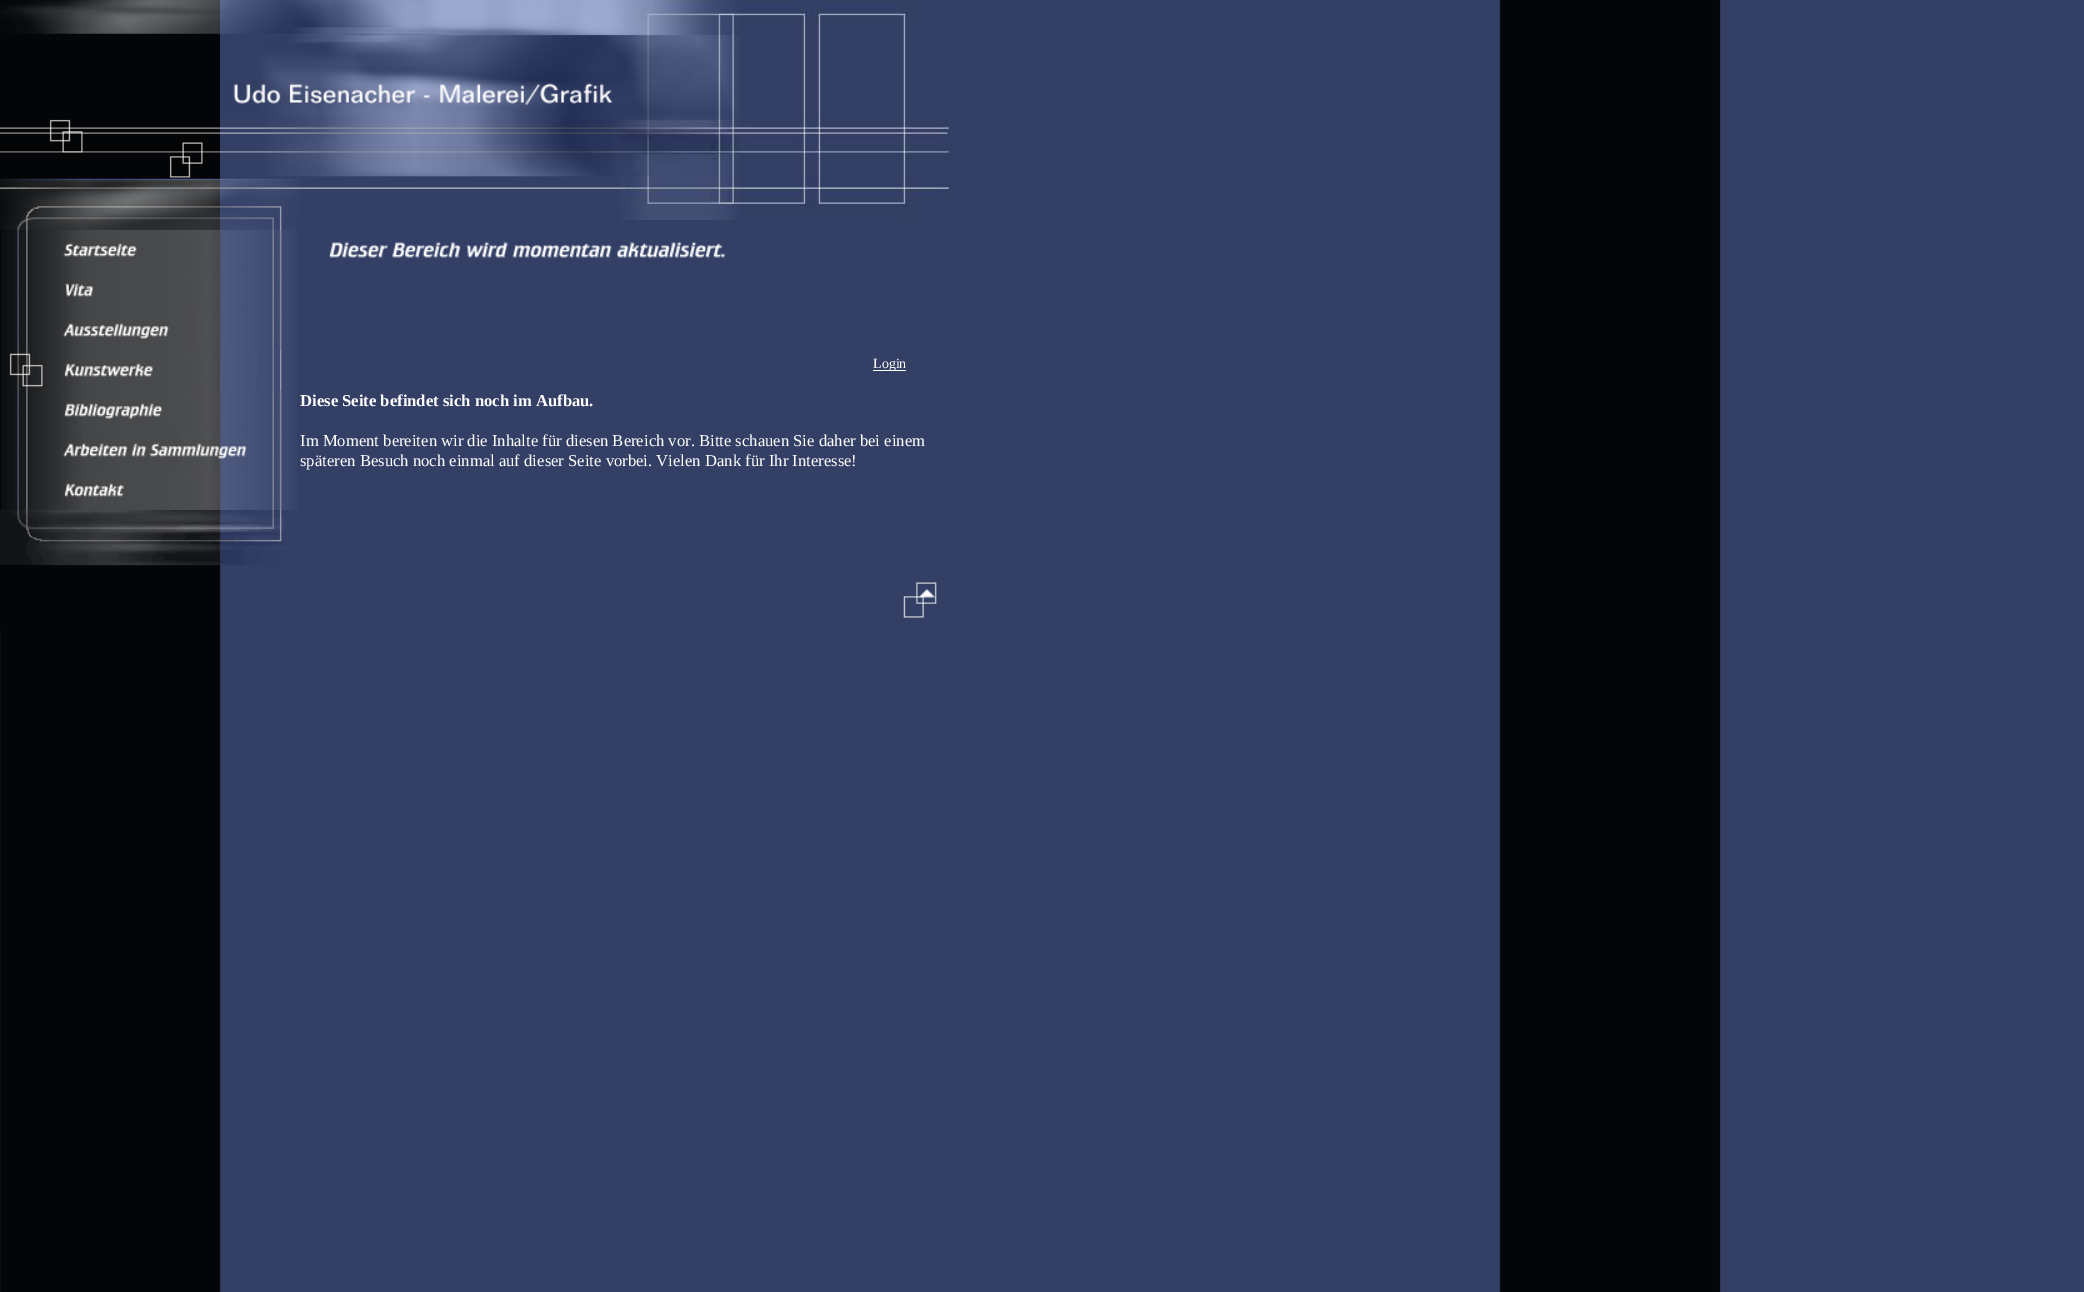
%!PS
<< /PageSize [2084 1292] >> setpagedevice
/picture { 5 dict begin { /h /w /y /x /name } { exch def } forall
  gsave x y translate w h scale
  w h 8 [w 0 0 h 0 0] name (r) file false 3 colorimage grestore end } def
0 1292 translate 1 -1 scale
4 setmiterlimit
1 setgray
0 0 2084 1292 rectfill
(img1.rgb) 0 0 2084 1292 picture
(img2.rgb) 0 0 220 110 picture
(img3.rgb) 220 0 400 80 picture
(img4.rgb) 620 0 330 220 picture
(img5.rgb) 220 80 400 30 picture
(img6.rgb) 0 110 220 70 picture
(img7.rgb) 220 110 400 70 picture
(img8.rgb) 0 180 220 50 picture
(img9.rgb) 220 180 80 50 picture
(img10.rgb) 300 187 320 2 picture
(img11.rgb) 0 230 297 40 picture
(img12.rgb) 0 270 297 40 picture
(img13.rgb) 0 310 297 40 picture
(img14.rgb) 0 350 297 40 picture
(img15.rgb) 0 390 297 40 picture
(img16.rgb) 0 430 297 40 picture
(img17.rgb) 0 470 297 40 picture
(img18.rgb) 0 510 284 60 picture
(img19.rgb) 329 242 397 16 picture
873 370 33 1 rectfill
/LiberationSerif-Regular [14 0 0 -14 0 0] selectfont
873 368 moveto (Login) show
/LiberationSerif-Bold [16.65 0 0 -16.65 0 0] selectfont
300 406 moveto (Diese Seite befindet sich noch im Aufbau.) show
/LiberationSerif-Regular [16.65 0 0 -16.65 0 0] selectfont
300 446 moveto (Im Moment bereiten wir die Inhalte für diesen Bereich vor. Bitte schauen Sie daher bei einem) show
300 466 moveto (späteren Besuch noch einmal auf dieser Seite vorbei. Vielen Dank für Ihr Interesse!) show
(img20.rgb) 0 570 937 60 picture
showpage
